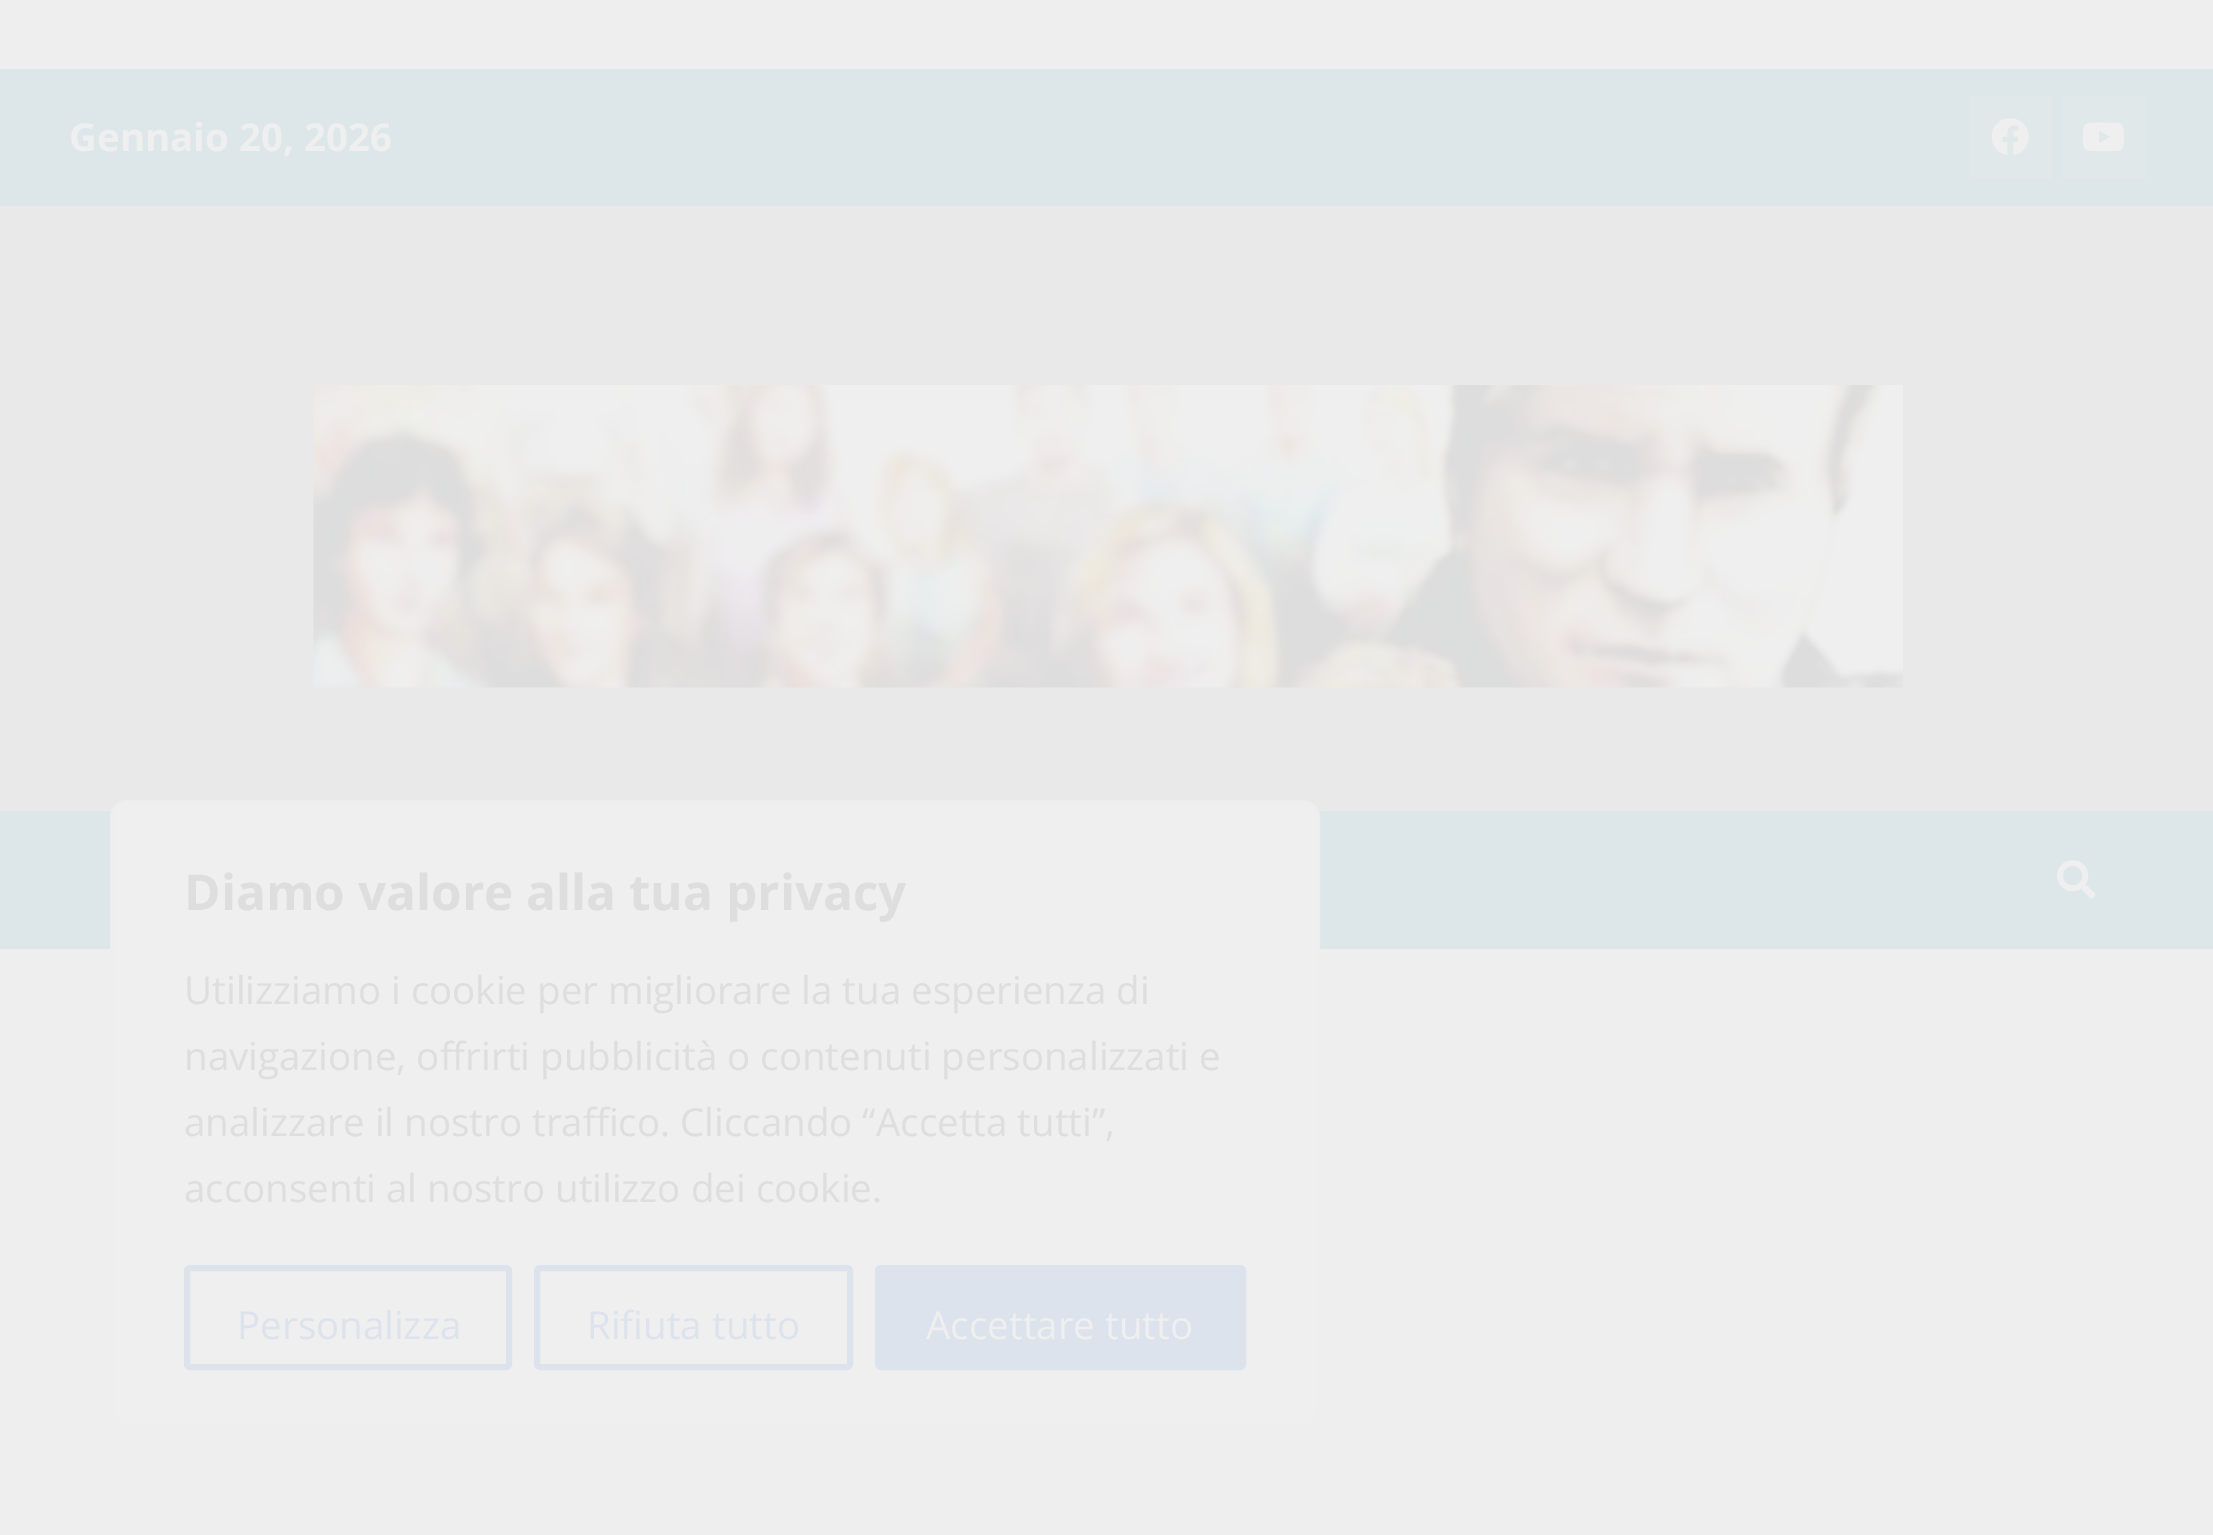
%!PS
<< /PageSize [2213 1535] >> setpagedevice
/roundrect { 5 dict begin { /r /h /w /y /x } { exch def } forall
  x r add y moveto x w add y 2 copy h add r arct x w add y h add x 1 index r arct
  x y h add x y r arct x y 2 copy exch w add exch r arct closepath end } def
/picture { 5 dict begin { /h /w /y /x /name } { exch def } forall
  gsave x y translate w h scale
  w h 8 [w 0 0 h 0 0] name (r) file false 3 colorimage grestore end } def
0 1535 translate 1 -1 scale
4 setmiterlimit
0.933 setgray
0 0 2213 1535 rectfill
0.867 0.906 0.914 setrgbcolor
0 69 2213 137 rectfill
/OpenSans-Bold [38.5 0 0 -38.5 0 0] selectfont
0.937 setgray
69 151 moveto (Gennaio 20, 2026) show
0.878 0.91 0.918 setrgbcolor
1969 96 83 83 rectfill
(img1.rgb) 1991 118 38 38 picture
2063 96 82 83 rectfill
(img2.rgb) 2082 122 42 30 picture
0.914 setgray
0 206 2213 605 rectfill
(img3.rgb) 313 385 1590 303 picture
0.867 0.906 0.914 setrgbcolor
0 811 2213 138 rectfill
(img4.rgb) 2057 860 39 39 picture
0.937 setgray
111.5 801.5 1207 624 15.5 roundrect gsave fill grestore
0.933 setgray
3 setlinewidth
stroke
/OpenSans-Bold [49.5 0 0 -49.5 0 0] selectfont
0.871 setgray
184 910 moveto (Diamo valore alla tua privacy) show
/OpenSans-Regular [38.5 0 0 -38.5 0 0] selectfont
184 1004 moveto (Utilizziamo i cookie per migliorare la tua esperienza di) show
184 1070 moveto (navigazione, offrirti pubblicità o contenuti personalizzati e) show
184 1136 moveto (analizzare il nostro traffico. Cliccando “Accetta tutti”,) show
184 1202 moveto (acconsenti al nostro utilizzo dei cookie.) show
0.867 0.89 0.929 setrgbcolor
6 setlinewidth
187 1268 322 99 3 roundrect stroke
237 1339 moveto (Personalizza) show
537 1268 313 99 3 roundrect stroke
587 1339 moveto (Rifiuta tutto) show
878 1268 365 99 3 roundrect gsave fill grestore
stroke
0.937 setgray
926 1339 moveto (Accettare tutto) show
showpage
